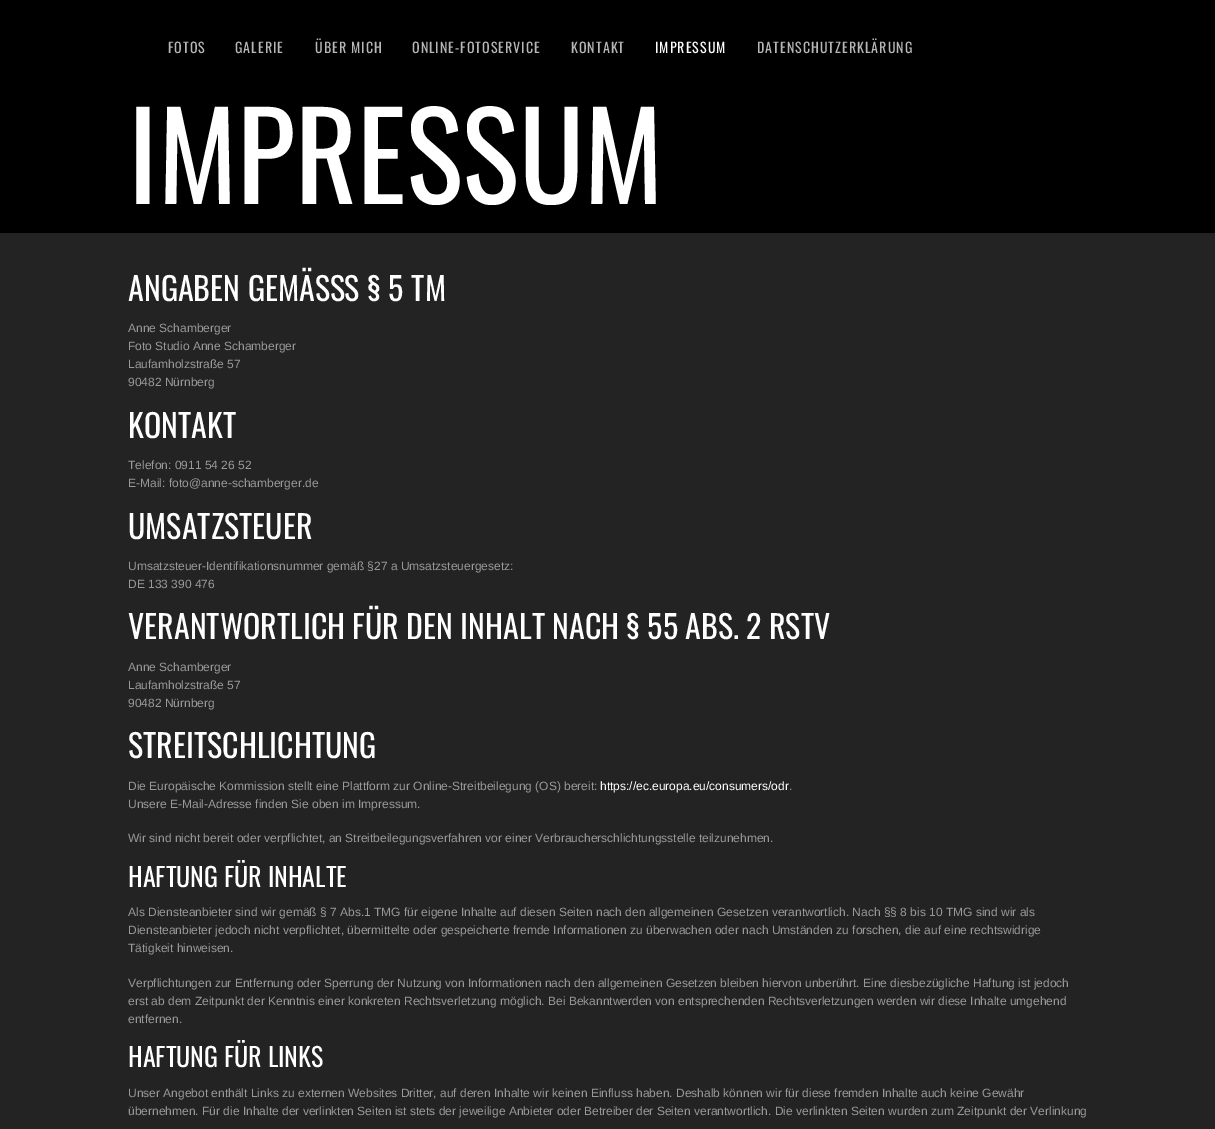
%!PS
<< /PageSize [1215 1129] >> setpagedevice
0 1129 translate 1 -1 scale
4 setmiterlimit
0 setgray
0 0 1215 1129 rectfill
/Oswald-Regular [14 0 0 -14 0 0] selectfont
0.718 setgray
168 53 moveto 1 0 (FOTOS) ashow
235 53 moveto 1 0 (GALERIE) ashow
315 53 moveto 1 0 (ÜBER MICH) ashow
412 53 moveto 1 0 (ONLINE-FOTOSERVICE) ashow
571 53 moveto 1 0 (KONTAKT) ashow
1 setgray
655 53 moveto 1 0 (IMPRESSUM) ashow
0.718 setgray
757 53 moveto 1 0 (DATENSCHUTZERKLÄRUNG) ashow
/Oswald-Regular [120 0 0 -120 0 0] selectfont
1 setgray
128 204 moveto (IMPRESSUM) show
0.137 setgray
0 233 1215 896 rectfill
/Oswald-Regular [32 0 0 -32 0 0] selectfont
1 setgray
128 301 moveto (ANGABEN GEMÄSS) show
344 301 moveto 0.5 0 32 (S § 5 TM) widthshow
/LiberationSans-Regular [12 0 0 -12 0 0] selectfont
0.6 setgray
128 332 moveto (Anne Schamberger) show
128 350 moveto (Foto Studio Anne Schamberger) show
128 368 moveto (Laufamholzstraße 57) show
128 386 moveto (90482 Nürnberg) show
/Oswald-Regular [32 0 0 -32 0 0] selectfont
1 setgray
128 438 moveto (KONTAKT) show
/LiberationSans-Regular [12 0 0 -12 0 0] selectfont
0.6 setgray
128 469 moveto (Telefon: 0911 54 26 52) show
128 487 moveto (E-Mail: foto@anne-schamberger.de) show
/Oswald-Regular [32 0 0 -32 0 0] selectfont
1 setgray
128 539 moveto (UMSATZSTEUER) show
/LiberationSans-Regular [12 0 0 -12 0 0] selectfont
0.6 setgray
128 570 moveto (Umsatzsteuer-Identifikationsnummer gemäß §27 a Umsatzsteuergesetz:) show
128 588 moveto (DE 133 390 476) show
/Oswald-Regular [32 0 0 -32 0 0] selectfont
1 setgray
128 639 moveto (VERANTWORTLICH FÜR DEN INHALT NACH § 55 ABS. 2 RSTV) show
/LiberationSans-Regular [12 0 0 -12 0 0] selectfont
0.6 setgray
128 671 moveto (Anne Schamberger) show
128 689 moveto (Laufamholzstraße 57) show
128 707 moveto (90482 Nürnberg) show
/Oswald-Regular [32 0 0 -32 0 0] selectfont
1 setgray
128 758 moveto (STREITSCHLICHTUNG) show
/LiberationSans-Regular [12 0 0 -12 0 0] selectfont
0.6 setgray
128 790 moveto (Die Europäische Kommission stellt eine Plattform zur Online-Streitbeilegung \(OS\) bereit:) show
1 setgray
600 790 moveto (https://ec.europa.eu/consumers/odr) show
0.6 setgray
789 790 moveto (.) show
128 808 moveto (Unsere E-Mail-Adresse finden Sie oben im Impressum.) show
128 842 moveto (Wir sind nicht bereit oder verpflichtet, an Streitbeilegungsverfahren vor einer Verbraucherschlichtungsstelle teilzunehmen.) show
/Oswald-Regular [26 0 0 -26 0 0] selectfont
1 setgray
128 887 moveto (HAFTUNG FÜR INHALTE) show
/LiberationSans-Regular [12 0 0 -12 0 0] selectfont
0.6 setgray
128 916 moveto (Als Diensteanbieter sind wir gemäß § 7 Abs.1 TMG für eigene Inhalte auf diesen Seiten nach den allgemeinen Gesetzen verantwortlich. Nach §§ 8 bis 10 TMG sind wir als) show
128 934 moveto (Diensteanbieter jedoch nicht verpflichtet, übermittelte oder gespeicherte fremde Informationen zu überwachen oder nach Umständen zu forschen, die auf eine rechtswidrige) show
128 952 moveto (Tätigkeit hinweisen.) show
128 987 moveto (Verpflichtungen zur Entfernung oder Sperrung der Nutzung von Informationen nach den allgemeinen Gesetzen bleiben hiervon unberührt. Eine diesbezügliche Haftung ist jedoch) show
128 1005 moveto (erst ab dem Zeitpunkt der Kenntnis einer konkreten Rechtsverletzung möglich. Bei Bekanntwerden von entsprechenden Rechtsverletzungen werden wir diese Inhalte umgehend) show
128 1023 moveto (entfernen.) show
/Oswald-Regular [26 0 0 -26 0 0] selectfont
1 setgray
128 1067 moveto (HAFTUNG FÜR LINKS) show
/LiberationSans-Regular [12 0 0 -12 0 0] selectfont
0.6 setgray
128 1097 moveto (Unser Angebot enthält Links zu externen Websites Dritter, auf deren Inhalte wir keinen Einfluss haben. Deshalb können wir für diese fremden Inhalte auch keine Gewähr) show
128 1115 moveto (übernehmen. Für die Inhalte der verlinkten Seiten ist stets der jeweilige Anbieter oder Betreiber der Seiten verantwortlich. Die verlinkten Seiten wurden zum Zeitpunkt der Verlinkung) show
showpage
